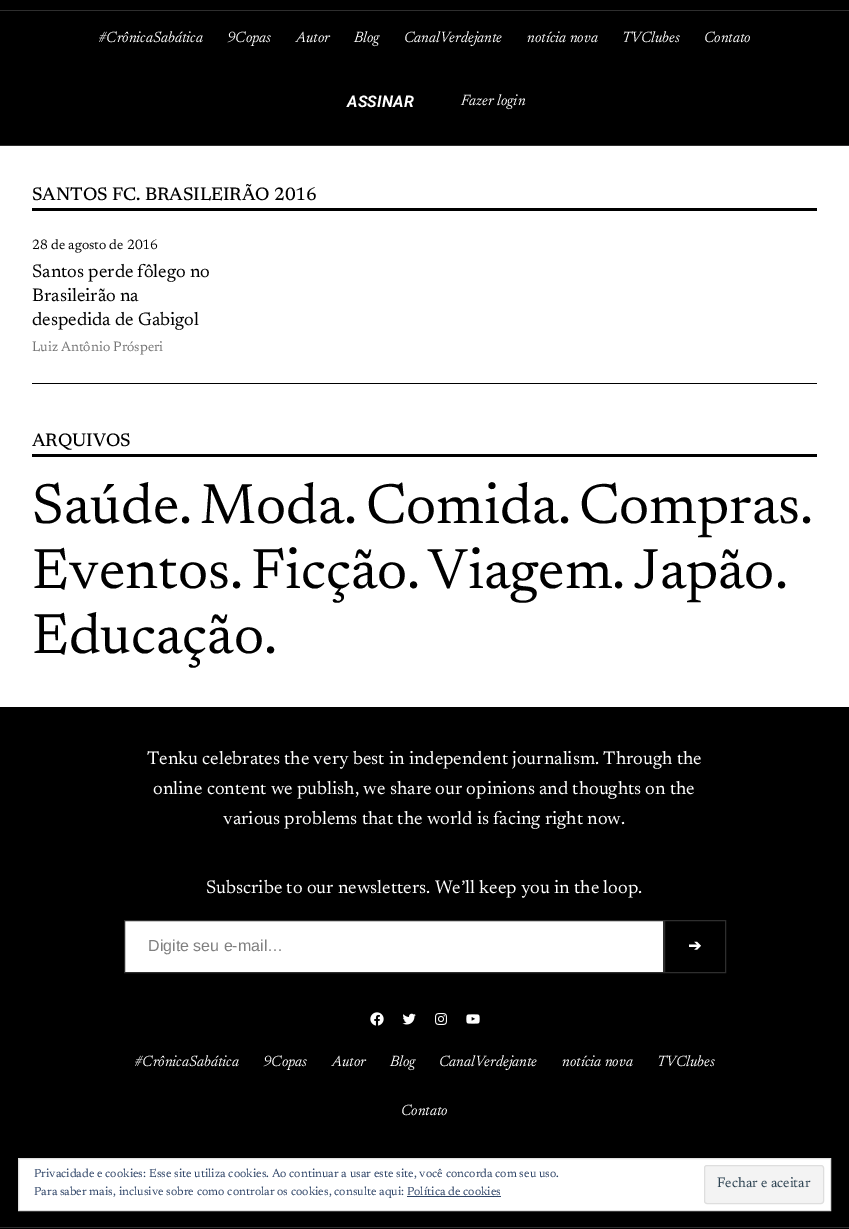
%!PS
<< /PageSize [849 1229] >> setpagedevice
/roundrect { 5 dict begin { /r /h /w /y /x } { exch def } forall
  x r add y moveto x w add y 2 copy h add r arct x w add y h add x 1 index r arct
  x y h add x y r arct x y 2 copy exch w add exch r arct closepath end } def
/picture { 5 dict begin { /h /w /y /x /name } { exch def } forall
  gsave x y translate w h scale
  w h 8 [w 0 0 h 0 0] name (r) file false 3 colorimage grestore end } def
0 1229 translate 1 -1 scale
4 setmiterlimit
1 setgray
0 0 849 1229 rectfill
0 setgray
0 0 849 145 rectfill
0.18 setgray
0 10 849 1 rectfill
0 145 849 1 rectfill
/Newsreader-Italic [15.25 0 0 -15.25 0 0] selectfont
1 setgray
98 42 moveto (#CrônicaSabática) show
227 42 moveto (9Copas) show
296 42 moveto (Autor) show
354 42 moveto (Blog) show
404 42 moveto (CanalVerdejante) show
527 42 moveto (notícia nova) show
622 42 moveto (TVClubes) show
704 42 moveto (Contato) show
/Roboto-BoldItalic [16 0 0 -16 0 0] selectfont
347 107 moveto 0.25 0 (ASSINAR) ashow
/Newsreader-Italic [15.25 0 0 -15.25 0 0] selectfont
461 105 moveto (Fazer login) show
0 setgray
32 208 785 3 rectfill
/Newsreader-Medium [18.4 0 0 -18.4 0 0] selectfont
32 200 moveto (SANTOS FC. BRASILEIRÃO 2016) show
/Newsreader-Regular [13.9 0 0 -13.9 0 0] selectfont
32 249 moveto (28 de agosto de 2016) show
/Newsreader-Regular [18.4 0 0 -18.4 0 0] selectfont
32 277 moveto (Santos perde fôlego no) show
32 301 moveto (Brasileirão na) show
32 325 moveto (despedida de Gabigol) show
/Newsreader-Regular [13.9 0 0 -13.9 0 0] selectfont
0.459 setgray
32 351 moveto (Luiz Antônio Prósperi) show
0 setgray
32 383 785 1 rectfill
32 454 785 3 rectfill
/Newsreader-Medium [18.4 0 0 -18.4 0 0] selectfont
32 446 moveto (ARQUIVOS) show
/Newsreader-Regular [57.25 0 0 -57.25 0 0] selectfont
32 523 moveto (Saúde.) show
200 523 moveto (Moda.) show
366 523 moveto (Comida.) show
579 523 moveto (Compras.) show
32 588 moveto (Eventos.) show
251 588 moveto (Ficção.) show
428 588 moveto (Viagem.) show
634 588 moveto (Japão.) show
32 653 moveto (Educação.) show
0 707 849 522 rectfill
/Newsreader-Regular [18.4 0 0 -18.4 0 0] selectfont
1 setgray
147 764 moveto (Tenku celebrates the very best in independent journalism. Through the) show
153 794 moveto (online content we publish, we share our opinions and thoughts on the) show
223 824 moveto (various problems that the world is facing right now.) show
206 893 moveto (Subscribe to our newsletters. We’ll keep you in the loop.) show
newpath 124.5 920.5 moveto 663.5 920.5 lineto 663.5 972.5 lineto 124.5 972.5 lineto closepath gsave fill grestore
0.18 setgray
stroke
/LiberationSans-Regular [16 0 0 -16 0 0] selectfont
0.502 setgray
148 951 moveto (Digite seu e-mail…) show
0.18 setgray
664.5 920.5 61 52 rectstroke
/DejaVuSans-Bold [16 0 0 -16 0 0] selectfont
1 setgray
688 951 moveto 0.25 0 (➔) ashow
(img1.rgb) 370 1012 14 14 picture
(img2.rgb) 402 1013 14 12 picture
(img3.rgb) 435 1013 12 12 picture
(img4.rgb) 466 1014 14 10 picture
/Newsreader-Italic [15.25 0 0 -15.25 0 0] selectfont
134 1066 moveto (#CrônicaSabática) show
263 1066 moveto (9Copas) show
332 1066 moveto (Autor) show
390 1066 moveto (Blog) show
439 1066 moveto (CanalVerdejante) show
562 1066 moveto (notícia nova) show
657 1066 moveto (TVClubes) show
401 1115 moveto (Contato) show
0.18 setgray
0 1227 849 1 rectfill
1 setgray
newpath 18.5 1158.5 moveto 830.5 1158.5 lineto 830.5 1210.5 lineto 18.5 1210.5 lineto closepath gsave fill grestore
0.871 setgray
stroke
/Newsreader-Regular [12 0 0 -12 0 0] selectfont
0.18 0.267 0.404 setrgbcolor
34 1177 moveto (Privacidade e cookies: Esse site utiliza cookies. Ao continuar a usar este site, você concorda com seu uso.) show
0.953 setgray
704.5 1165.5 119 38 2.5 roundrect gsave fill grestore
0.871 setgray
stroke
/Newsreader-Regular [14 0 0 -14 0 0] selectfont
0.18 0.267 0.325 setrgbcolor
717 1187 moveto (Fechar e aceitar) show
/Newsreader-Regular [12 0 0 -12 0 0] selectfont
0.18 0.267 0.404 setrgbcolor
34 1195 moveto (Para saber mais, inclusive sobre como controlar os cookies, consulte aqui: Política de cookies) show
407 1196 94 1 rectfill
showpage
